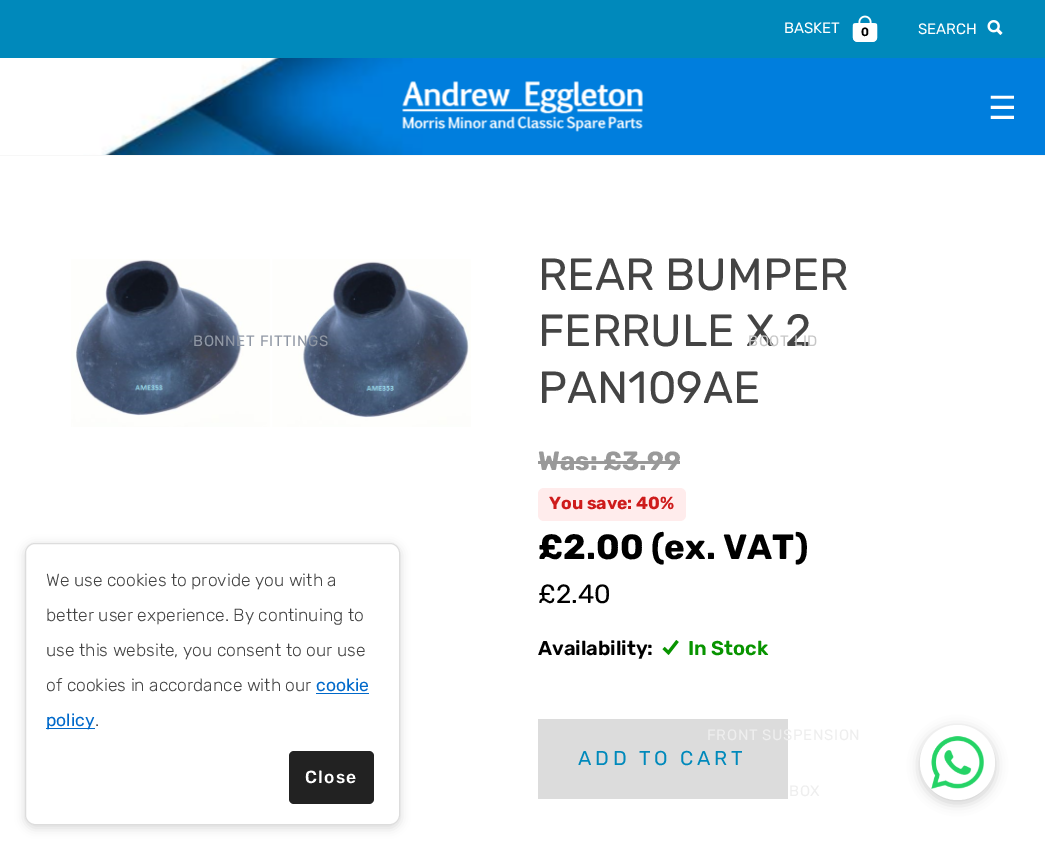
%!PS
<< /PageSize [1045 849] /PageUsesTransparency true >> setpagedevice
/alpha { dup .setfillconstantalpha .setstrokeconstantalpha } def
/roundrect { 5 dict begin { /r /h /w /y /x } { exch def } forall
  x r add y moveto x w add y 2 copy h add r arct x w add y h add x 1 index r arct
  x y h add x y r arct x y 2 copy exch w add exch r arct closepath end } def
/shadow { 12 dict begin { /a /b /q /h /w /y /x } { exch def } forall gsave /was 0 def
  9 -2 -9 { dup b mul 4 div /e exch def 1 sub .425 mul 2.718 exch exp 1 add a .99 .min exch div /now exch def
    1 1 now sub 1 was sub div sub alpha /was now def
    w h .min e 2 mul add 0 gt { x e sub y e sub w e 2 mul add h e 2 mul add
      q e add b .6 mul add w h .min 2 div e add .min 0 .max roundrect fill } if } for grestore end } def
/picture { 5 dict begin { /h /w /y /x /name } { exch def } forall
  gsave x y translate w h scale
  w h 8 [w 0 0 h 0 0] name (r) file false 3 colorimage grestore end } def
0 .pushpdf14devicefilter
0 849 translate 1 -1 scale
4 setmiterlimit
1 setgray
0 0 1045 849 rectfill
0 0.537 0.733 setrgbcolor
0 0 1045 58 rectfill
/Rubik-Regular [15 0 0 -15 0 0] selectfont
1 setgray
784 33 moveto (BASKET) show
(img1.rgb) 852 15 26 27 picture
/Rubik-SemiBold [12 0 0 -12 0 0] selectfont
0 setgray
861 36 moveto (0) show
/Rubik-Regular [15 0 0 -15 0 0] selectfont
1 setgray
918 34 moveto (SEARCH) show
(img2.rgb) 987 20 16 15 picture
(img3.rgb) 83 58 962 97 picture
0.969 setgray
0 155 1045 1 rectfill
(img4.rgb) 402 81 241 51 picture
/DejaVuSans-Regular [32 0 0 -32 0 0] selectfont
1 setgray
988 119 moveto (☰) show
(img5.rgb) 71 259 400 168 picture
/Rubik-Regular [15 0 0 -15 0 0] selectfont
0.561 0.592 0.643 setrgbcolor
193 346 moveto 0.6 0 (BONNET FITTINGS) ashow
/Rubik-Regular [45 0 0 -45 0 0] selectfont
0.267 setgray
538 346 moveto (FERRULE X 2) show
/Rubik-Regular [15 0 0 -15 0 0] selectfont
0.78 setgray
748 346 moveto 0.6 0 (BOOT LID) ashow
0.863 setgray
538 719 250 80 rectfill
0.933 setgray
707 740 moveto 0.6 0 (FRONT SUSPENSION) ashow
789 796 moveto 0.6 0 (BOX) ashow
/Rubik-Regular [45 0 0 -45 0 0] selectfont
0.267 setgray
538 290 moveto (REAR BUMPER) show
538 403 moveto (PAN109AE) show
/Rubik-Bold [26.25 0 0 -26.25 0 0] selectfont
0.6 setgray
538 470 moveto (Was: £3.99) show
538 461 142 3 rectfill
1 0.925 0.925 setrgbcolor
538 488 148 33 6 roundrect fill
/Rubik-Bold [17.5 0 0 -17.5 0 0] selectfont
0.808 0.106 0.106 setrgbcolor
549 509 moveto (You save: 40%) show
/Rubik-Bold [35 0 0 -35 0 0] selectfont
0 setgray
538 559 moveto (£2.00 \(ex. VAT\)) show
/Rubik-Regular [26.25 0 0 -26.25 0 0] selectfont
538 603 moveto (£2.40) show
/Rubik-SemiBold [20 0 0 -20 0 0] selectfont
538 655 moveto (Availability:) show
(img6.rgb) 662 640 17 15 picture
0.031 0.58 0 setrgbcolor
688 655 moveto (In Stock) show
/Rubik-Regular [20 0 0 -20 0 0] selectfont
0 0.537 0.733 setrgbcolor
578 765 moveto 3.75 0 (ADD TO CART) ashow
0 setgray
25 545 375 283 10 5 0.15 shadow
1 setgray
25.5 543.5 374 281 9.5 roundrect gsave fill grestore
0.867 setgray
stroke
/Rubik-Light [17.5 0 0 -17.5 0 0] selectfont
0.267 setgray
46 586 moveto (We use cookies to provide you with a) show
46 621 moveto (better user experience. By continuing to) show
46 656 moveto (use this website, you consent to our use) show
46 691 moveto (of cookies in accordance with our) show
/Rubik-Regular [17.5 0 0 -17.5 0 0] selectfont
0 0.412 0.792 setrgbcolor
316 691 moveto (cookie) show
316 693 53 1 rectfill
46 728 49 1 rectfill
46 726 moveto (policy) show
/Rubik-Light [17.5 0 0 -17.5 0 0] selectfont
0.267 setgray
95 726 moveto (.) show
0.133 setgray
289 751 85 53 5 roundrect fill
/Rubik-Medium [17.5 0 0 -17.5 0 0] selectfont
1 setgray
305 783 moveto 1.25 0 (Close) ashow
0 setgray
920 728 75 75 37.5 6 0.2 shadow
1 setgray
newpath 957.5 762.5 37.5 0 360 arc closepath fill
(img7.rgb) 931 736 53 53 picture
.poppdf14devicefilter showpage
